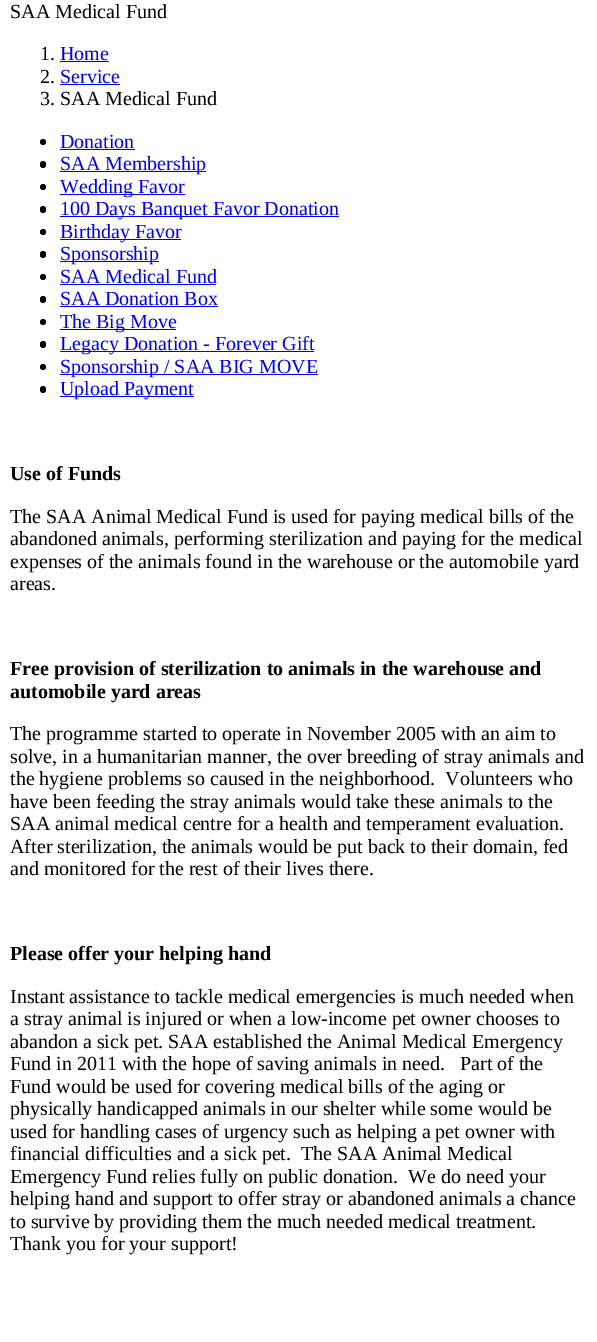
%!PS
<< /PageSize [597 1342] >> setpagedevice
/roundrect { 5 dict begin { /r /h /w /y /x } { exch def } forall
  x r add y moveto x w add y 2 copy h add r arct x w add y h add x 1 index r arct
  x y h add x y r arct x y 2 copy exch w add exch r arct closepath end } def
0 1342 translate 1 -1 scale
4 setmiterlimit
1 setgray
0 0 597 1342 rectfill
/LiberationSerif-Regular [20 0 0 -20 0 0] selectfont
0 setgray
10 18 moveto (SAA Medical Fund) show
40 60 moveto (1.) show
0 0 0.933 setrgbcolor
60 60 moveto (Home) show
60 61 49 1 rectfill
0 setgray
40 83 moveto (2.) show
0 0 0.933 setrgbcolor
60 83 moveto (Service) show
60 84 60 1 rectfill
0 setgray
40 105 moveto (3. SAA Medical Fund) show
newpath 43 142 3 0 360 arc closepath fill
0 0 0.933 setrgbcolor
60 148 moveto (Donation) show
60 149 75 1 rectfill
0 setgray
40 161 6 7 3 roundrect fill
0 0 0.933 setrgbcolor
60 171 146 1 rectfill
60 170 moveto (SAA Membership) show
0 setgray
newpath 43 187 3 0 360 arc closepath fill
0 0 0.933 setrgbcolor
60 194 125 1 rectfill
60 193 moveto (Wedding Favor) show
0 setgray
40 206 6 7 3 roundrect fill
0 0 0.933 setrgbcolor
60 216 279 1 rectfill
60 215 moveto (100 Days Banquet Favor Donation) show
0 setgray
newpath 43 232 3 0 360 arc closepath fill
0 0 0.933 setrgbcolor
60 239 121 1 rectfill
60 238 moveto (Birthday Favor) show
0 setgray
40 251 6 7 3 roundrect fill
0 0 0.933 setrgbcolor
60 261 99 1 rectfill
60 260 moveto (Sponsorship) show
0 setgray
newpath 43 277 3 0 360 arc closepath fill
0 0 0.933 setrgbcolor
60 283 moveto (SAA Medical Fund) show
60 284 156 1 rectfill
0 setgray
40 296 6 7 3 roundrect fill
0 0 0.933 setrgbcolor
60 305 moveto (SAA Donation Box) show
60 306 158 1 rectfill
0 setgray
newpath 43 322 3 0 360 arc closepath fill
0 0 0.933 setrgbcolor
60 329 116 1 rectfill
60 328 moveto (The Big Move) show
0 setgray
40 341 6 7 3 roundrect fill
0 0 0.933 setrgbcolor
60 351 254 1 rectfill
60 350 moveto (Legacy Donation - Forever Gift) show
0 setgray
newpath 43 367 3 0 360 arc closepath fill
0 0 0.933 setrgbcolor
60 374 258 1 rectfill
60 373 moveto (Sponsorship / SAA BIG MOVE) show
0 setgray
40 386 6 7 3 roundrect fill
0 0 0.933 setrgbcolor
60 396 134 1 rectfill
60 395 moveto (Upload Payment) show
/LiberationSerif-Bold [20 0 0 -20 0 0] selectfont
0 setgray
10 480 moveto (Use of Funds) show
/LiberationSerif-Regular [20 0 0 -20 0 0] selectfont
10 523 moveto (The SAA Animal Medical Fund is used for paying medical bills of the) show
10 545 moveto (abandoned animals, performing sterilization and paying for the medical) show
10 568 moveto (expenses of the animals found in the warehouse or the automobile yard) show
10 590 moveto (areas.) show
/LiberationSerif-Bold [20 0 0 -20 0 0] selectfont
10 675 moveto (Free provision of sterilization to animals in the warehouse and) show
10 698 moveto (automobile yard areas) show
/LiberationSerif-Regular [20 0 0 -20 0 0] selectfont
10 740 moveto (The programme started to operate in November 2005 with an aim to) show
10 763 moveto (solve, in a humanitarian manner, the over breeding of stray animals and) show
10 785 moveto (the hygiene problems so caused in the neighborhood.  Volunteers who) show
10 808 moveto (have been feeding the stray animals would take these animals to the) show
10 830 moveto (SAA animal medical centre for a health and temperament evaluation.) show
10 853 moveto (After sterilization, the animals would be put back to their domain, fed) show
10 875 moveto (and monitored for the rest of their lives there.) show
/LiberationSerif-Bold [20 0 0 -20 0 0] selectfont
10 960 moveto (Please offer your helping hand) show
/LiberationSerif-Regular [20 0 0 -20 0 0] selectfont
10 1003 moveto (Instant assistance to tackle medical emergencies is much needed when) show
10 1025 moveto (a stray animal is injured or when a low-income pet owner chooses to) show
10 1048 moveto (abandon a sick pet. SAA established the Animal Medical Emergency) show
10 1070 moveto (Fund in 2011 with the hope of saving animals in need.   Part of the) show
10 1093 moveto (Fund would be used for covering medical bills of the aging or) show
10 1115 moveto (physically handicapped animals in our shelter while some would be) show
10 1138 moveto (used for handling cases of urgency such as helping a pet owner with) show
10 1160 moveto (financial difficulties and a sick pet.  The SAA Animal Medical) show
10 1183 moveto (Emergency Fund relies fully on public donation.  We do need your) show
10 1205 moveto (helping hand and support to offer stray or abandoned animals a chance) show
10 1228 moveto (to survive by providing them the much needed medical treatment.) show
10 1250 moveto (Thank you for your support!) show
showpage
